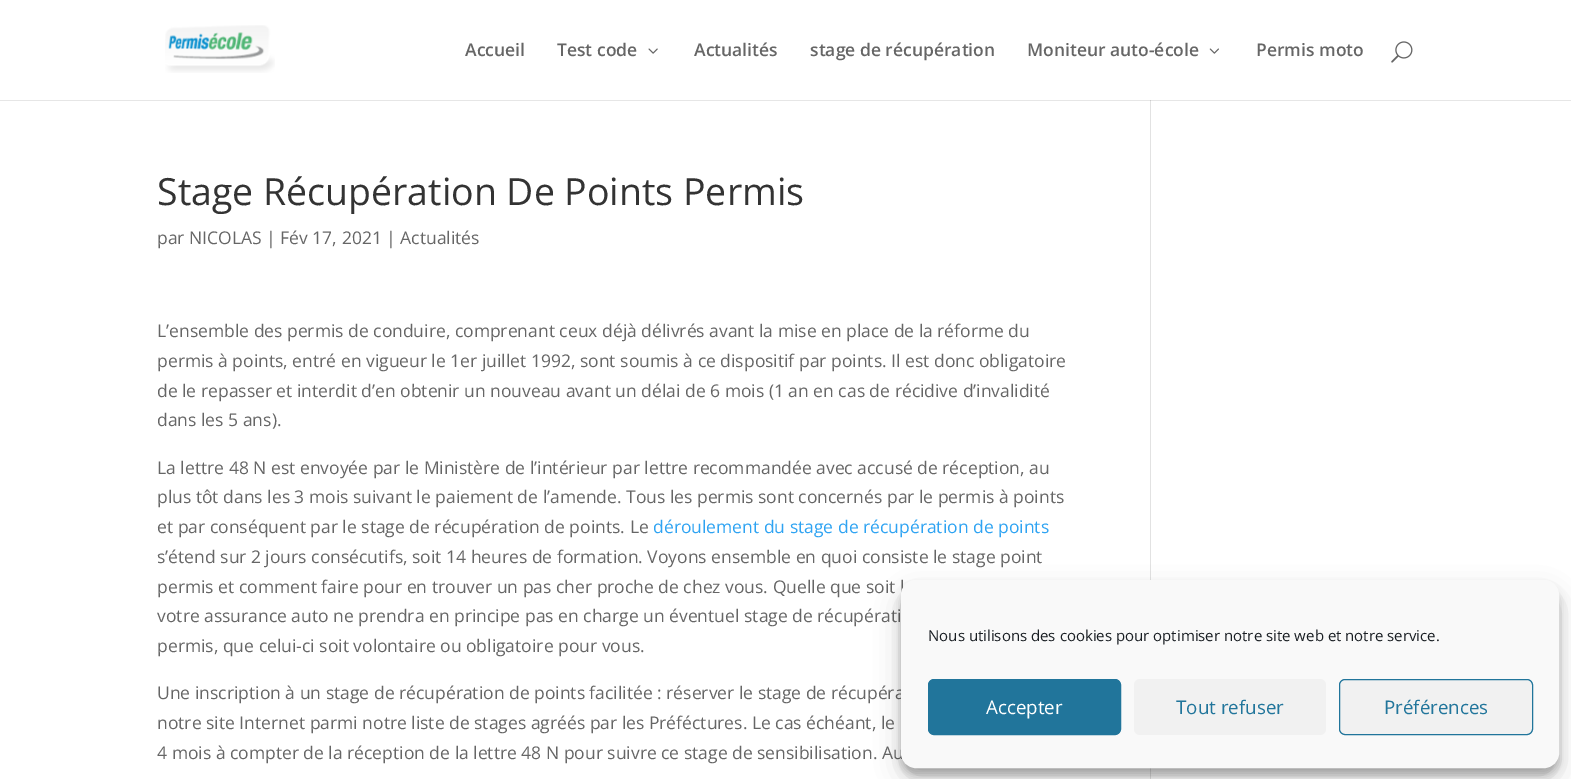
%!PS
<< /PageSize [1571 779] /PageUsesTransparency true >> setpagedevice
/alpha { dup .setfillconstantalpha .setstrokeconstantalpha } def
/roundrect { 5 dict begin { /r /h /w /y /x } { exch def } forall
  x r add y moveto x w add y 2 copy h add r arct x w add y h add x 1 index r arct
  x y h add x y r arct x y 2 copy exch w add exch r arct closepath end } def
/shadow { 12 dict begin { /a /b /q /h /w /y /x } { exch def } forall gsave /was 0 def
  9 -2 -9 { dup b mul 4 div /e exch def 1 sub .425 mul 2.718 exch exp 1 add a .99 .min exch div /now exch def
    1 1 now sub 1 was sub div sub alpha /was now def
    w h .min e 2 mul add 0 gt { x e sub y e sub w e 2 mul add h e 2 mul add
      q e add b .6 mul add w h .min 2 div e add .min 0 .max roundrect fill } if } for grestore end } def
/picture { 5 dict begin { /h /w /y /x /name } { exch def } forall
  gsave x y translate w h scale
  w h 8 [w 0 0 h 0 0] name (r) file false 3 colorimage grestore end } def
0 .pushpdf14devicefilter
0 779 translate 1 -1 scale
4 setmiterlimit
1 setgray
0 0 1571 779 rectfill
0.902 setgray
0 100 1571 1 rectfill
(img1.rgb) 165 25 110 48 picture
/OpenSans-SemiBold [17.5 0 0 -17.5 0 0] selectfont
0.4 setgray
465 56 moveto (Accueil) show
557 56 moveto (Test code) show
(img2.rgb) 648 48 10 6 picture
694 56 moveto (Actualités) show
810 56 moveto (stage de récupération) show
1027 56 moveto (Moniteur auto-école) show
(img3.rgb) 1209 48 10 6 picture
1256 56 moveto (Permis moto) show
(img4.rgb) 1391 41 22 22 picture
/OpenSans-Regular [37.5 0 0 -37.5 0 0] selectfont
0.2 setgray
157 205 moveto (Stage Récupération De Points Permis) show
/OpenSans-Regular [17.5 0 0 -17.5 0 0] selectfont
0.4 setgray
157 244 moveto (par NICOLAS | Fév 17, 2021 | Actualités) show
157 337 moveto (L’ensemble des permis de conduire, comprenant ceux déjà délivrés avant la mise en place de la réforme du) show
157 367 moveto (permis à points, entré en vigueur le 1er juillet 1992, sont soumis à ce dispositif par points. Il est donc obligatoire) show
157 397 moveto (de le repasser et interdit d’en obtenir un nouveau avant un délai de 6 mois \(1 an en cas de récidive d’invalidité) show
157 426 moveto (dans les 5 ans\).) show
157 474 moveto (La lettre 48 N est envoyée par le Ministère de l’intérieur par lettre recommandée avec accusé de réception, au) show
157 503 moveto (plus tôt dans les 3 mois suivant le paiement de l’amende. Tous les permis sont concernés par le permis à points) show
157 533 moveto (et par conséquent par le stage de récupération de points. Le) show
0.18 0.639 0.949 setrgbcolor
653 533 moveto (déroulement du stage de récupération de points) show
0.4 setgray
157 563 moveto (s’étend sur 2 jours consécutifs, soit 14 heures de formation. Voyons ensemble en quoi consiste le stage point) show
157 593 moveto (permis et comment faire pour en trouver un pas cher proche de chez vous. Quelle que soit l) show
157 622 moveto (votre assurance auto ne prendra en principe pas en charge un éventuel stage de récupérati) show
157 652 moveto (permis, que celui-ci soit volontaire ou obligatoire pour vous.) show
157 699 moveto (Une inscription à un stage de récupération de points facilitée : réserver le stage de récupéra) show
157 729 moveto (notre site Internet parmi notre liste de stages agréés par les Préféctures. Le cas échéant, le) show
157 759 moveto (4 mois à compter de la réception de la lettre 48 N pour suivre ce stage de sensibilisation. Au) show
0.886 setgray
1150 100 1 679 rectfill
0.796 setgray
1150 100 1 1 rectfill
0 setgray
901 588 658 187 15 4 0.23 shadow
901 593 658 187 15 12.5 0.19 shadow
0.976 setgray
901.5 580.5 657 187 14.5 roundrect gsave fill grestore
stroke
/OpenSans-Regular [15 0 0 -15 0 0] selectfont
0.098 0.118 0.137 setrgbcolor
928 641 moveto (Nous utilisons des cookies pour optimiser notre site web et notre service.) show
0.129 0.459 0.608 setrgbcolor
928.5 679.5 192 55 5.5 roundrect gsave fill grestore
stroke
/OpenSans-Regular [18.75 0 0 -18.75 0 0] selectfont
1 setgray
986 714 moveto (Accepter) show
0.945 setgray
1134 679 192 56 6 roundrect fill
0.129 0.459 0.608 setrgbcolor
1176 714 moveto (Tout refuser) show
0.945 setgray
1339.5 679.5 193 55 5.5 roundrect gsave fill grestore
0.129 0.459 0.608 setrgbcolor
stroke
1384 714 moveto (Préférences) show
.poppdf14devicefilter showpage
